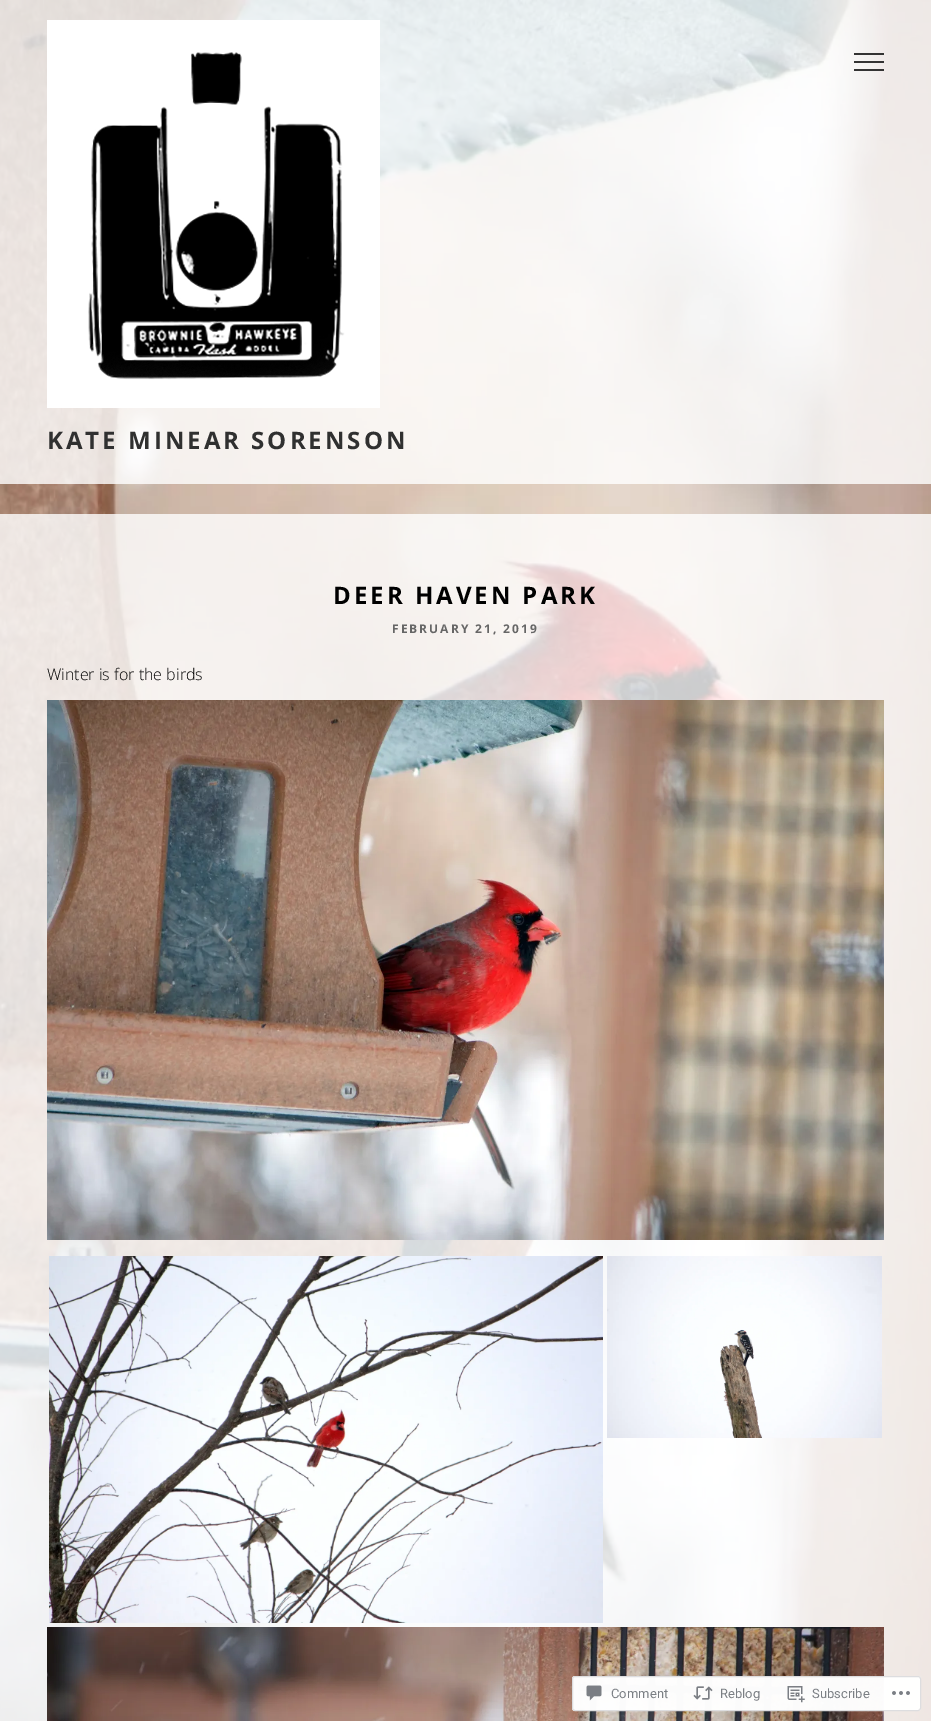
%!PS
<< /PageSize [931 1721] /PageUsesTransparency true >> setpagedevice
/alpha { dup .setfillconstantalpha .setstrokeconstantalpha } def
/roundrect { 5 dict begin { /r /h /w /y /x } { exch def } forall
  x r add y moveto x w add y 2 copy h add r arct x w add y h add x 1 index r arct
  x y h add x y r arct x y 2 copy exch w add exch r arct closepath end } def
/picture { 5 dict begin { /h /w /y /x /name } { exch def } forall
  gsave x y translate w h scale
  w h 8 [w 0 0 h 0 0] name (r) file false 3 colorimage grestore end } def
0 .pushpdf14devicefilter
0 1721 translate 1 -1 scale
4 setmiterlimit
1 setgray
0 0 931 1721 rectfill
(img1.rgb) 0 0 931 1721 picture
0.8 alpha
0 0 931 484 rectfill
1 alpha
0.2 setgray
854 53 30 2 rectfill
854 61 30 2 rectfill
854 69 30 2 rectfill
(img2.rgb) 47 20 333 388 picture
/OpenSans-Bold [24 0 0 -24 0 0] selectfont
0.188 setgray
47 449 moveto 3 0 (KATE MINEAR SORENSON) ashow
0.8 alpha
1 setgray
0 514 931 1207 rectfill
1 alpha
0 setgray
333 604 moveto 3 0 (DEER HAVEN PARK) ashow
/OpenSans-Bold [12 0 0 -12 0 0] selectfont
0.4 setgray
392 633 moveto 2 0 (FEBRUARY 21, 2019) ashow
/OpenSans-Light [16 0 0 -16 0 0] selectfont
0 setgray
47 680 moveto (Winter is for the birds) show
(img3.rgb) 47 700 837 540 picture
(img4.rgb) 49 1256 554 367 picture
(img5.rgb) 607 1256 275 182 picture
(img6.rgb) 47 1627 837 94 picture
0.98 alpha
1 setgray
572 1676 349 35 3 roundrect fill
0.863 0.863 0.871 setrgbcolor
572.5 1676.5 348 34 2.5 roundrect stroke
1 alpha
(img7.rgb) 586 1685 16 16 picture
/Roboto-Regular [13 0 0 -13 0 0] selectfont
0.482 0.498 0.518 setrgbcolor
611 1698 moveto (Comment) show
(img8.rgb) 693 1686 20 14 picture
720 1698 moveto (Reblog) show
(img9.rgb) 787 1686 18 17 picture
812 1698 moveto (Subscribe) show
(img10.rgb) 892 1691 18 4 picture
.poppdf14devicefilter showpage
